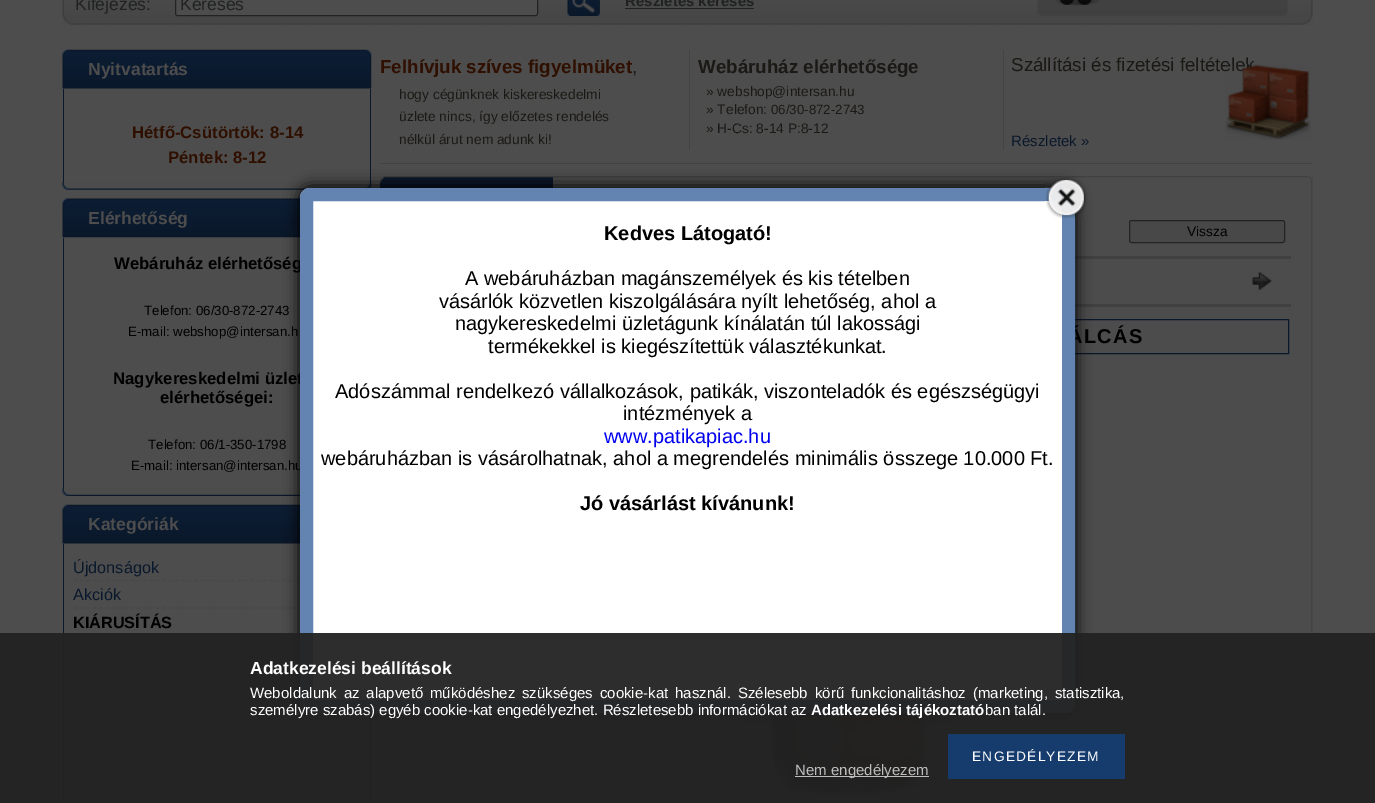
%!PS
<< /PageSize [1375 803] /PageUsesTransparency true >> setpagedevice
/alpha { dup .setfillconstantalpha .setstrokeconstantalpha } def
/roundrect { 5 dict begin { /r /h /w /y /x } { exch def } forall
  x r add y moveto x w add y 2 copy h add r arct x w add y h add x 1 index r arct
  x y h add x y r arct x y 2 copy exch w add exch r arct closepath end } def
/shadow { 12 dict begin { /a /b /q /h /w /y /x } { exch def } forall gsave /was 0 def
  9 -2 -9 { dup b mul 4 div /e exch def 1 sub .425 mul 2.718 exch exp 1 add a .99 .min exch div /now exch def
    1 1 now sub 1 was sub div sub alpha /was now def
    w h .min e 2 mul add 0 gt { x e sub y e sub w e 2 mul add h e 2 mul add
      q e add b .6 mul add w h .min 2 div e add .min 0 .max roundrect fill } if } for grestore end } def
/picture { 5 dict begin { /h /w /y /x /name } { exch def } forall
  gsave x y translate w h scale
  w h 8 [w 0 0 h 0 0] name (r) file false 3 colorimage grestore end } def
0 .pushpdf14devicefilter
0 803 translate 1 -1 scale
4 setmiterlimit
0.302 setgray
0 0 1375 803 rectfill
(img1.rgb) 62 0 13 25 picture
(img2.rgb) 75 0 1225 25 picture
/LiberationSans-Regular [17.5 0 0 -17.5 0 0] selectfont
0.125 0.129 0.133 setrgbcolor
75 10 moveto (Kifejezés:) show
0.302 setgray
175.5 -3.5 362 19 2 roundrect gsave fill grestore
0.137 setgray
stroke
0.125 0.129 0.133 setrgbcolor
180 10 moveto (Keresés) show
(img3.rgb) 567 0 33 16 picture
/LiberationSans-Bold [15 0 0 -15 0 0] selectfont
625 6 moveto (Részletes keresés) show
625 8 129 1 rectfill
(img4.rgb) 1037 0 8 16 picture
(img5.rgb) 1045 0 235 16 picture
(img6.rgb) 1055 0 45 6 picture
(img7.rgb) 1280 0 8 16 picture
(img8.rgb) 1300 0 13 25 picture
(img9.rgb) 380 49 933 754 picture
(img10.rgb) 62 49 310 40 picture
/LiberationSans-Bold [17.5 0 0 -17.5 0 0] selectfont
0.302 setgray
88 75 moveto (Nyitvatartás) show
(img11.rgb) 62 182 310 8 picture
0.039 0.094 0.165 setrgbcolor
370 89 1 94 rectfill
63 89 1 94 rectfill
/LiberationSans-Bold [16.75 0 0 -16.75 0 0] selectfont
0.18 0.059 0 setrgbcolor
132 138 moveto (Hétfő-Csütörtök: 8-14) show
168 163 moveto (Péntek: 8-12) show
(img12.rgb) 62 198 238 40 picture
/LiberationSans-Bold [17.5 0 0 -17.5 0 0] selectfont
0.302 setgray
88 224 moveto (Elérhetőség) show
(img13.rgb) 62 488 238 8 picture
0.039 0.094 0.165 setrgbcolor
63 238 1 251 rectfill
/LiberationSans-Bold [16.75 0 0 -16.75 0 0] selectfont
0 setgray
114 269 moveto (Webáruház elérhetőség) show
/LiberationSans-Regular [13.3 0 0 -13.3 0 0] selectfont
144 315 moveto (Telefon: 06/30-872-2743) show
128 336 moveto (E-mail: webshop@intersan.h) show
/LiberationSans-Bold [16.75 0 0 -16.75 0 0] selectfont
113 384 moveto (Nagykereskedelmi üzlet) show
160 403 moveto (elérhetőségei:) show
/LiberationSans-Regular [13.3 0 0 -13.3 0 0] selectfont
148 449 moveto (Telefon: 06/1-350-1798) show
131 470 moveto (E-mail: intersan@intersan.hu) show
(img14.rgb) 62 504 238 40 picture
/LiberationSans-Bold [17.5 0 0 -17.5 0 0] selectfont
0.302 setgray
88 530 moveto (Kategóriák) show
0.039 0.094 0.165 setrgbcolor
370 713 1 90 rectfill
63 544 1 259 rectfill
0.282 setgray
1.2 setlinewidth
[3.75 2.55] 0 setdash
newpath 74 580.5 moveto 361 580.5 lineto stroke
/LiberationSans-Regular [16.25 0 0 -16.25 0 0] selectfont
0.039 0.094 0.169 setrgbcolor
73 573 moveto (Újdonságok) show
0.282 setgray
newpath 74 608 moveto 361 608 lineto stroke
0.039 0.094 0.169 setrgbcolor
73 600 moveto (Akciók) show
0.282 setgray
newpath 74 635.5 moveto 361 635.5 lineto stroke
/LiberationSans-Bold [16.25 0 0 -16.25 0 0] selectfont
0 setgray
73 628 moveto (KIÁRUSÍTÁS) show
0.282 setgray
newpath 74 663 moveto 361 663 lineto stroke
newpath 74 690.5 moveto 361 690.5 lineto stroke
newpath 74 718 moveto 361 718 lineto stroke
newpath 74 745.5 moveto 361 745.5 lineto stroke
newpath 74 773 moveto 361 773 lineto stroke
0.302 setgray
380 50 933 113 rectfill
0.263 setgray
380 163 933 1 rectfill
/LiberationSans-Bold [18.75 0 0 -18.75 0 0] selectfont
0.18 0.059 0 setrgbcolor
380 73 moveto (Felhívjuk szíves figyelmüket) show
/LiberationSans-Regular [18.75 0 0 -18.75 0 0] selectfont
0.102 0.098 0.082 setrgbcolor
632 73 moveto (,) show
/LiberationSans-Regular [13.75 0 0 -13.75 0 0] selectfont
399 99 moveto (hogy cégünknek kiskereskedelmi) show
399 121 moveto (üzlete nincs, így előzetes rendelés) show
399 144 moveto (nélkül árut nem adunk ki!) show
0.263 setgray
689 50 1 100 rectfill
/LiberationSans-Bold [18.75 0 0 -18.75 0 0] selectfont
0.102 0.098 0.082 setrgbcolor
698 73 moveto (Webáruház elérhetősége) show
/LiberationSans-Regular [13.75 0 0 -13.75 0 0] selectfont
706 96 moveto (» webshop@intersan.hu) show
706 114 moveto (» Telefon:) show
/LiberationSans-Regular [13.3 0 0 -13.3 0 0] selectfont
771 114 moveto (06/30-872-2743) show
/LiberationSans-Regular [13.75 0 0 -13.75 0 0] selectfont
706 133 moveto (» H-Cs: 8-14 P:8-12) show
0.263 setgray
1003 50 1 100 rectfill
/LiberationSans-Regular [18.75 0 0 -18.75 0 0] selectfont
0.102 0.098 0.082 setrgbcolor
1011 71 moveto (Szállítási és fizetési feltételek) show
/LiberationSans-Regular [15 0 0 -15 0 0] selectfont
0.039 0.094 0.169 setrgbcolor
1011 146 moveto (Részletek ») show
(img15.rgb) 1225 64 86 76 picture
0.302 setgray
380 164 933 12 rectfill
0.039 0.094 0.169 setrgbcolor
380 177 173 11 rectfill
(img16.rgb) 380 176 933 7 picture
0.282 setgray
1129.5 220.5 155 22 2 roundrect gsave fill grestore
0.137 setgray
1 setlinewidth
[] 0 setdash
stroke
/LiberationSans-Regular [13.75 0 0 -13.75 0 0] selectfont
0 setgray
1187 236 moveto (Vissza) show
0.251 setgray
1075 256 216 3 rectfill
(img17.rgb) 1252 272 20 18 picture
1075 304 216 3 rectfill
0.039 0.094 0.169 setrgbcolor
406.5 319.5 882 34 rectstroke
/LiberationSans-Bold [20 0 0 -20 0 0] selectfont
0 setgray
1068 343 moveto 1.25 0 (ÁLCÁS) ashow
(img18.rgb) 745 713 207 90 picture
299 186 777 528 11 7.5 1 shadow
1 setgray
300 188 775 525 10 roundrect fill
0.7 alpha
0.129 0.314 0.561 setrgbcolor
13 setlinewidth
306.5 194.5 762 512 3.5 roundrect stroke
1 alpha
(img19.rgb) 1045 177 42 42 picture
0 setgray
604 240 moveto (Kedves Látogató!) show
/LiberationSans-Regular [20 0 0 -20 0 0] selectfont
465 285 moveto (A webáruházban magánszemélyek és kis tételben) show
439 308 moveto (vásárlók közvetlen kiszolgálására nyílt lehetőség, ahol a) show
455 330 moveto (nagykereskedelmi üzletágunk kínálatán túl lakossági) show
488 353 moveto (termékekkel is kiegészítettük választékunkat.) show
335 398 moveto (Adószámmal rendelkezó vállalkozások, patikák, viszonteladók és egészségügyi) show
623 420 moveto (intézmények a) show
0 0 0.933 setrgbcolor
604 443 moveto (www.patikapiac.hu) show
0 setgray
321 465 moveto (webáruházban is vásárolhatnak, ahol a megrendelés minimális összege 10.000 Ft.) show
/LiberationSans-Bold [20 0 0 -20 0 0] selectfont
580 510 moveto (Jó vásárlást kívánunk!) show
0.95 alpha
0.133 setgray
0 633 1375 170 rectfill
/LiberationSans-Bold [17.5 0 0 -17.5 0 0] selectfont
1 alpha
1 setgray
250 674 moveto (Adatkezelési beállítások) show
/LiberationSans-Regular [15 0 0 -15 0 0] selectfont
250 698 moveto 2.75 0 32 (Weboldalunk az alapvető működéshez szükséges cookie-kat használ. Szélesebb körű funkcionalitáshoz \(marketing, statisztika,) widthshow
250 715 moveto (személyre szabás\) egyéb cookie-kat engedélyezhet. Részletesebb információkat az) show
/LiberationSans-Bold [15 0 0 -15 0 0] selectfont
811 715 moveto (Adatkezelési tájékoztató) show
/LiberationSans-Regular [15 0 0 -15 0 0] selectfont
985 715 moveto (ban talál.) show
0.086 0.235 0.427 setrgbcolor
948 734 177 45 rectfill
/LiberationSans-Regular [13.75 0 0 -13.75 0 0] selectfont
1 setgray
972 761 moveto 1.25 0 (ENGEDÉLYEZEM) ashow
0.7 alpha
795 776 134 1 rectfill
/LiberationSans-Regular [15 0 0 -15 0 0] selectfont
1 alpha
0.741 setgray
795 775 moveto (Nem engedélyezem) show
.poppdf14devicefilter showpage
